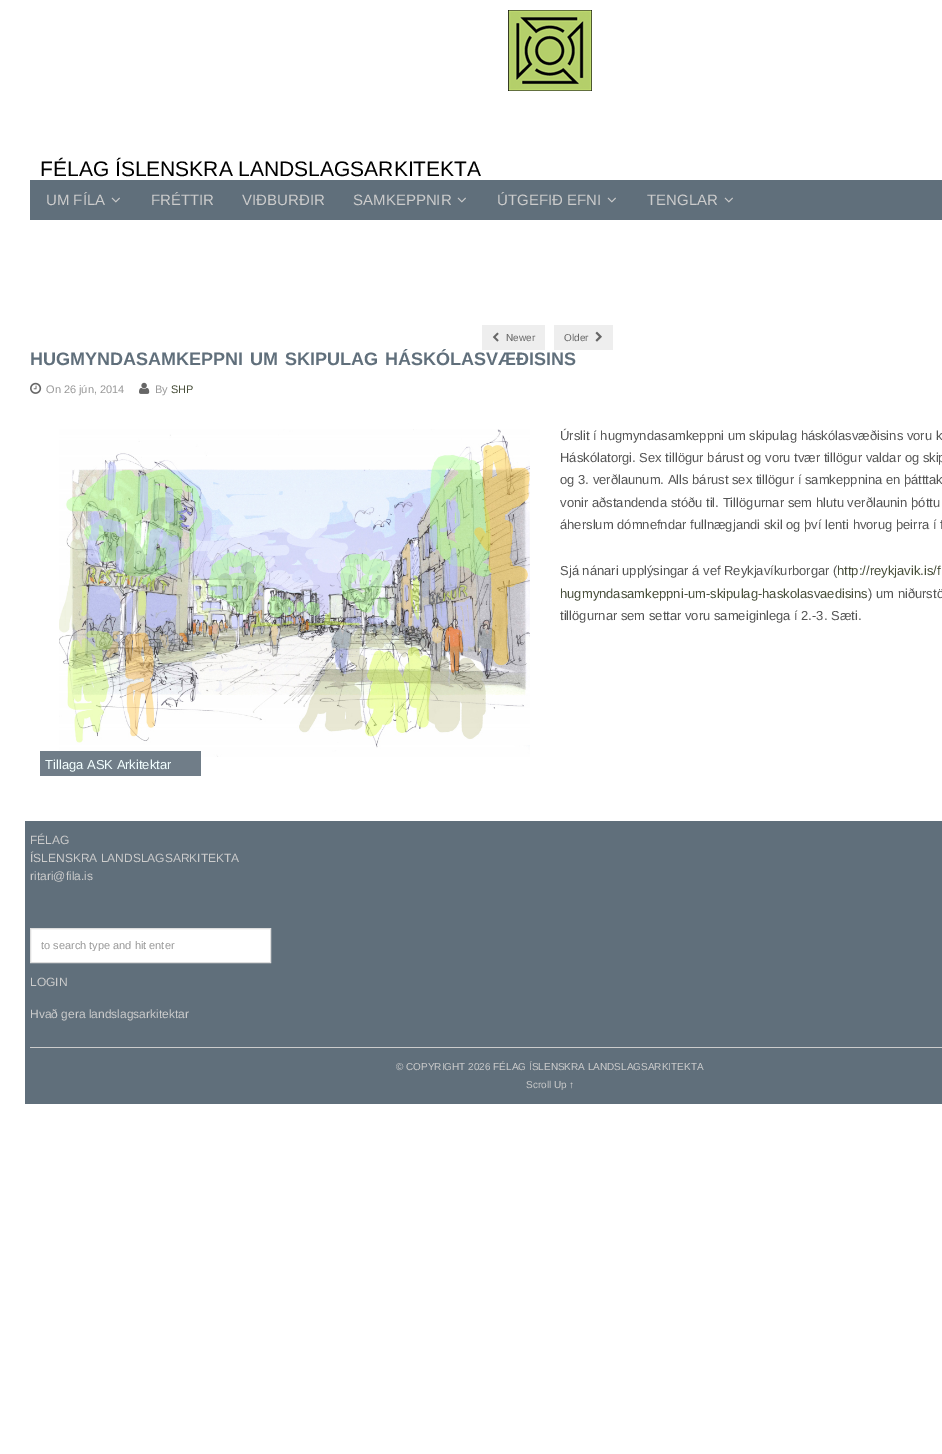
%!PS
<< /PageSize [942 1454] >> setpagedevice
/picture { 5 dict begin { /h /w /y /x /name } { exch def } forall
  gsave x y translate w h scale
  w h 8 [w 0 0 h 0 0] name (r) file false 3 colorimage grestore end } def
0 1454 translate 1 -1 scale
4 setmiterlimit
1 setgray
0 0 942 1454 rectfill
(img1.rgb) 508 10 84 81 picture
/LiberationSans-Regular [21 0 0 -21 0 0] selectfont
0 setgray
40 176 moveto (FÉLAG ÍSLENSKRA LANDSLAGSARKITEKTA) show
0.376 0.435 0.482 setrgbcolor
30 180 912 40 rectfill
/LiberationSans-Regular [15 0 0 -15 0 0] selectfont
0.8 setgray
46 205 moveto (UM FÍLA) show
(img2.rgb) 111 197 9 6 picture
151 205 moveto (FRÉTTIR) show
242 205 moveto (VIÐBURÐIR) show
353 205 moveto (SAMKEPPNIR) show
(img2.rgb) 457 197 9 6 picture
497 205 moveto (ÚTGEFIÐ EFNI) show
(img2.rgb) 607 197 9 6 picture
647 205 moveto (TENGLAR) show
(img2.rgb) 724 197 9 6 picture
/LiberationSans-Bold [18 0 0 -18 0 0] selectfont
0.376 0.435 0.482 setrgbcolor
30 365 moveto 2 0 32 (HUGMYNDASAMKEPPNI UM SKIPULAG HÁSKÓLASVÆÐISINS) widthshow
0.933 setgray
482 325 63 25 rectfill
(img3.rgb) 492 332 7 10 picture
/LiberationSans-Regular [10 0 0 -10 0 0] selectfont
0.4 setgray
506 341 moveto (Newer) show
0.933 setgray
554 325 59 25 rectfill
0.4 setgray
564 341 moveto (Older) show
(img4.rgb) 595 331 7 11 picture
(img5.rgb) 30 382 12 12 picture
/LiberationSans-Regular [11 0 0 -11 0 0] selectfont
0.6 setgray
46 393 moveto (On 26 jún, 2014) show
(img6.rgb) 139 382 11 12 picture
155 393 moveto (By) show
0.282 0.31 0.227 setrgbcolor
171 393 moveto (SHP) show
/LiberationSans-Regular [13 0 0 -13 0 0] selectfont
0.333 setgray
560 440 moveto (Úrslit í hugmyndasamkeppni um skipulag háskólasvæðisins voru k) show
560 462 moveto (Háskólatorgi. Sex tillögur bárust og voru tvær tillögur valdar og skip) show
560 484 moveto (og 3. verðlaunum. Alls bárust sex tillögur í samkeppnina en þátttak) show
560 507 moveto (vonir aðstandenda stóðu til. Tillögurnar sem hlutu verðlaunin þóttu) show
560 529 moveto (áherslum dómnefndar fullnægjandi skil og því lenti hvorug þeirra í f) show
560 575 moveto (Sjá nánari upplýsingar á vef Reykjavíkurborgar \() show
0.282 0.31 0.227 setrgbcolor
837 575 moveto (http://reykjavik.is/f) show
560 598 moveto (hugmyndasamkeppni-um-skipulag-haskolasvaedisins) show
0.333 setgray
868 598 moveto (\) um niðurstö) show
560 620 moveto (tillögurnar sem settar voru sameiginlega í 2.-3. Sæti.) show
(img7.rgb) 59 429 471 328 picture
0.439 0.49 0.533 setrgbcolor
40 751 161 25 rectfill
0.949 1 1 setrgbcolor
45 769 moveto (Tillaga ASK Arkitektar) show
0.376 0.435 0.482 setrgbcolor
25 821 917 283 rectfill
/LiberationSans-Regular [12 0 0 -12 0 0] selectfont
0.8 setgray
30 844 moveto (FÉLAG) show
30 862 moveto (ÍSLENSKRA LANDSLAGSARKITEKTA) show
30 880 moveto (ritari@fila.is) show
1 setgray
newpath 30.5 928.5 moveto 270.5 928.5 lineto 270.5 962.5 lineto 30.5 962.5 lineto closepath gsave fill grestore
0.867 setgray
stroke
gsave
41 939 207 12 rectclip
/LiberationSans-Regular [11 0 0 -11 0 0] selectfont
0.6 setgray
41 949 moveto (to search type and hit enter) show
grestore
0.8 setgray
30 986 moveto (LOGIN) show
30 1018 moveto (Hvað gera landslagsarkitektar) show
30 1047 912 1 rectfill
/LiberationSans-Regular [10 0 0 -10 0 0] selectfont
396 1070 moveto (© COPYRIGHT 2026 FÉLAG ÍSLENSKRA LANDSLAGSARKITEKTA) show
526 1088 moveto (Scroll Up ↑) show
showpage
